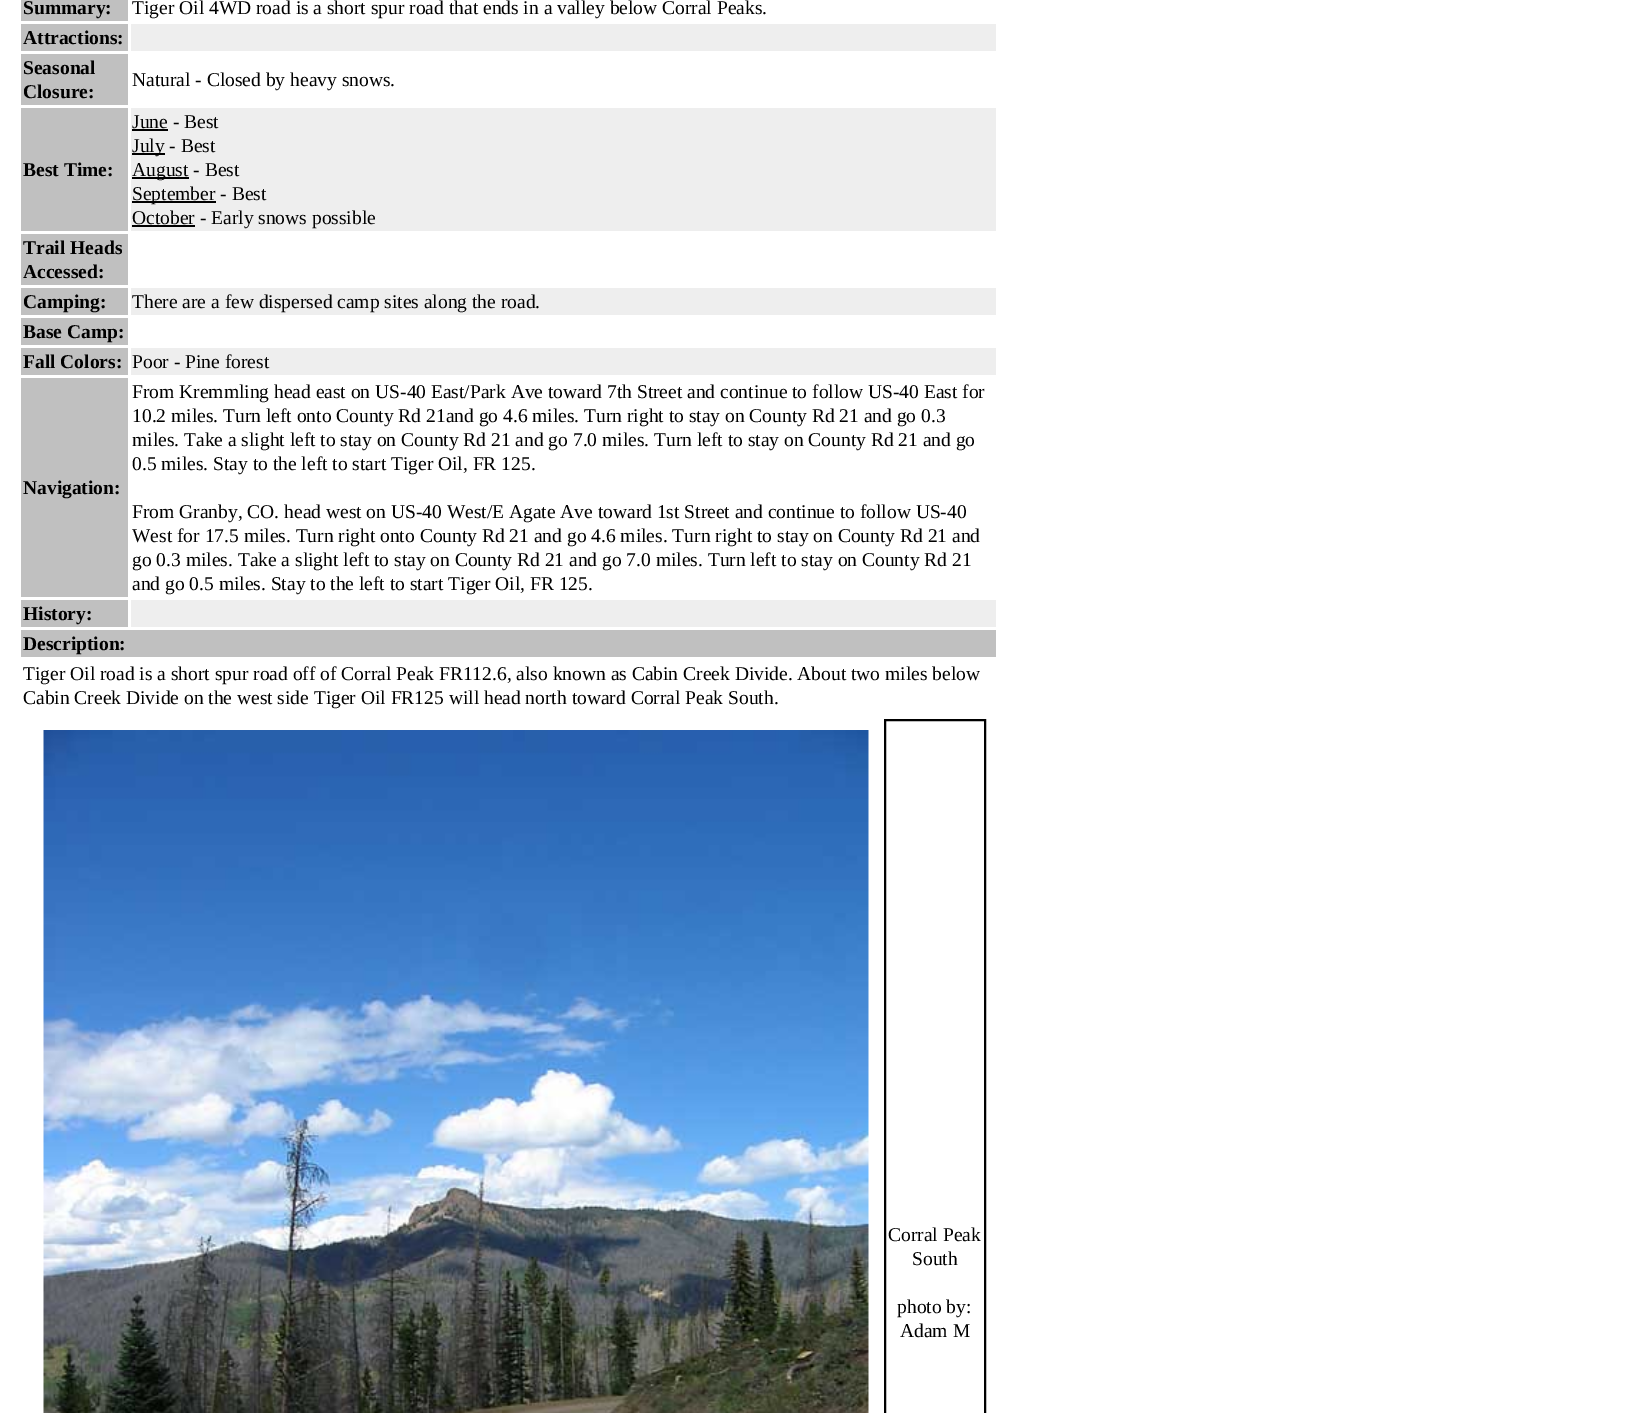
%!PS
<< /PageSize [1634 1413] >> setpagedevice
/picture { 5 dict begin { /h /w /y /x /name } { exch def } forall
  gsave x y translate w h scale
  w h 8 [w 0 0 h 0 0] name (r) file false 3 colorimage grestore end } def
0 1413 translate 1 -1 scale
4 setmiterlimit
1 setgray
0 0 1634 1413 rectfill
0.753 setgray
21 0 107 21 rectfill
/LiberationSerif-Bold [19.5 0 0 -19.5 0 0] selectfont
0 setgray
23 14 moveto (Summary:) show
/LiberationSerif-Regular [19.5 0 0 -19.5 0 0] selectfont
132 14 moveto (Tiger Oil 4WD road is a short spur road that ends in a valley below Corral Peaks.) show
0.753 setgray
21 24 107 27 rectfill
/LiberationSerif-Bold [19.5 0 0 -19.5 0 0] selectfont
0 setgray
23 44 moveto (Attractions:) show
0.933 setgray
131 24 865 27 rectfill
0.753 setgray
21 54 107 51 rectfill
0 setgray
23 74 moveto (Seasonal) show
23 98 moveto (Closure:) show
/LiberationSerif-Regular [19.5 0 0 -19.5 0 0] selectfont
132 86 moveto (Natural - Closed by heavy snows.) show
0.753 setgray
21 108 107 123 rectfill
/LiberationSerif-Bold [19.5 0 0 -19.5 0 0] selectfont
0 setgray
23 176 moveto (Best Time:) show
0.933 setgray
131 108 865 123 rectfill
/LiberationSerif-Regular [19.5 0 0 -19.5 0 0] selectfont
0 setgray
132 128 moveto (June - Best) show
132 129 36 2 rectfill
132 153 33 2 rectfill
132 152 moveto (July - Best) show
132 177 57 2 rectfill
132 176 moveto (August - Best) show
132 201 84 2 rectfill
132 200 moveto (September - Best) show
132 225 63 2 rectfill
132 224 moveto (October - Early snows possible) show
0.753 setgray
21 234 107 51 rectfill
/LiberationSerif-Bold [19.5 0 0 -19.5 0 0] selectfont
0 setgray
23 254 moveto (Trail Heads) show
23 278 moveto (Accessed:) show
0.753 setgray
21 288 107 27 rectfill
0 setgray
23 308 moveto (Camping:) show
0.933 setgray
131 288 865 27 rectfill
/LiberationSerif-Regular [19.5 0 0 -19.5 0 0] selectfont
0 setgray
132 308 moveto (There are a few dispersed camp sites along the road.) show
0.753 setgray
21 318 107 27 rectfill
/LiberationSerif-Bold [19.5 0 0 -19.5 0 0] selectfont
0 setgray
23 338 moveto (Base Camp:) show
0.753 setgray
21 348 107 27 rectfill
0 setgray
23 368 moveto (Fall Colors:) show
0.933 setgray
131 348 865 27 rectfill
/LiberationSerif-Regular [19.5 0 0 -19.5 0 0] selectfont
0 setgray
132 368 moveto (Poor - Pine forest) show
0.753 setgray
21 378 107 219 rectfill
/LiberationSerif-Bold [19.5 0 0 -19.5 0 0] selectfont
0 setgray
23 494 moveto (Navigation:) show
/LiberationSerif-Regular [19.5 0 0 -19.5 0 0] selectfont
132 398 moveto (From Kremmling head east on US-40 East/Park Ave toward 7th Street and continue to follow US-40 East for) show
132 422 moveto (10.2 miles. Turn left onto County Rd 21and go 4.6 miles. Turn right to stay on County Rd 21 and go 0.3) show
132 446 moveto (miles. Take a slight left to stay on County Rd 21 and go 7.0 miles. Turn left to stay on County Rd 21 and go) show
132 470 moveto (0.5 miles. Stay to the left to start Tiger Oil, FR 125.) show
132 518 moveto (From Granby, CO. head west on US-40 West/E Agate Ave toward 1st Street and continue to follow US-40) show
132 542 moveto (West for 17.5 miles. Turn right onto County Rd 21 and go 4.6 miles. Turn right to stay on County Rd 21 and) show
132 566 moveto (go 0.3 miles. Take a slight left to stay on County Rd 21 and go 7.0 miles. Turn left to stay on County Rd 21) show
132 590 moveto (and go 0.5 miles. Stay to the left to start Tiger Oil, FR 125.) show
0.753 setgray
21 600 107 27 rectfill
/LiberationSerif-Bold [19.5 0 0 -19.5 0 0] selectfont
0 setgray
23 620 moveto (History:) show
0.933 setgray
131 600 865 27 rectfill
0.753 setgray
21 630 975 27 rectfill
0 setgray
23 650 moveto (Description:) show
/LiberationSerif-Regular [19.5 0 0 -19.5 0 0] selectfont
23 680 moveto (Tiger Oil road is a short spur road off of Corral Peak FR112.6, also known as Cabin Creek Divide. About two miles below) show
23 704 moveto (Cabin Creek Divide on the west side Tiger Oil FR125 will head north toward Corral Peak South.) show
(img1.rgb) 43 730 826 683 picture
2 setlinewidth
885 720 100 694 rectstroke
888 1241 moveto (Corral Peak) show
912 1265 moveto (South) show
897 1313 moveto (photo by:) show
900 1337 moveto (Adam M) show
showpage
